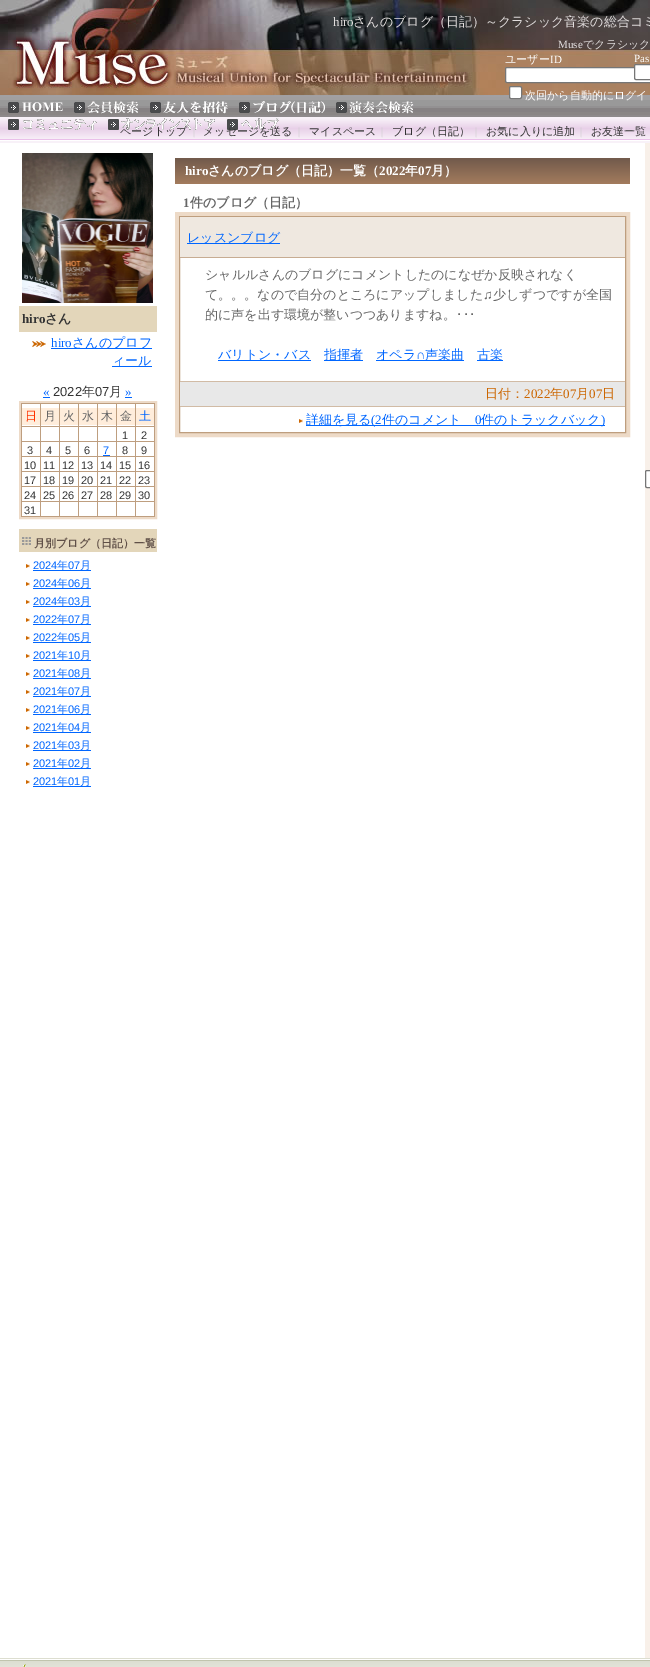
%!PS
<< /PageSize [650 1667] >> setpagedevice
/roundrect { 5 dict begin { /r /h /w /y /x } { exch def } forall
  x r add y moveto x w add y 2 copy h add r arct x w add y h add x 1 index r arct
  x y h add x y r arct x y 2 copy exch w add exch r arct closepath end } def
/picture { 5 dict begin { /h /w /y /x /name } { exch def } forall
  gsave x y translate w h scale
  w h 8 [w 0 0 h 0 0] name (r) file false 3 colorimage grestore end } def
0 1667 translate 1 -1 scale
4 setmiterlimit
1 setgray
0 0 650 1667 rectfill
(img1.rgb) 0 0 650 95 picture
/LiberationSerif-Regular [13 0 0 -13 0 0] selectfont
0.886 0.871 0.871 setrgbcolor
333 26 moveto (hiro) show
/WenQuanYiZenHei-Medium [13 0 0 -13 0 0] selectfont
353 26 moveto (さんのブログ（日記）～クラシック音楽の総合コミ) show
/LiberationSerif-Regular [11 0 0 -11 0 0] selectfont
558 48 moveto (Muse) show
/WenQuanYiZenHei-Medium [11 0 0 -11 0 0] selectfont
583 48 moveto (でクラシック) show
1 setgray
505 63 moveto (ユーザー) show
/LiberationSerif-Regular [11 0 0 -11 0 0] selectfont
550 63 moveto (ID) show
505.5 67.5 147 15 1.5 roundrect gsave fill grestore
0.463 setgray
stroke
1 setgray
634 62 moveto (Pas) show
634.5 64.5 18 15 1.5 roundrect gsave fill grestore
0.463 setgray
stroke
(img2.rgb) 0 95 650 22 picture
1 setgray
509.5 86.5 12 12 1.5 roundrect gsave fill grestore
0.463 setgray
stroke
/WenQuanYiZenHei-Medium [11 0 0 -11 0 0] selectfont
1 setgray
525 99 moveto (次回から自動的にログイ) show
(img3.rgb) 8 102 55 11 picture
(img4.rgb) 74 101 64 13 picture
(img5.rgb) 150 101 78 13 picture
(img6.rgb) 239 101 86 12 picture
(img7.rgb) 336 101 78 13 picture
(img11.rgb) 0 117 650 26 picture
(img8.rgb) 8 119 89 11 picture
(img9.rgb) 108 118 107 12 picture
(img10.rgb) 227 118 52 12 picture
0.973 0.941 0.914 setrgbcolor
645 143 5 1515 rectfill
0.2 setgray
120 135 moveto (ページトップ) show
/LiberationSerif-Regular [11 0 0 -11 0 0] selectfont
0.8 setgray
193 135 moveto (|) show
/WenQuanYiZenHei-Medium [11 0 0 -11 0 0] selectfont
0.2 setgray
203 135 moveto (メッセージを送る) show
/LiberationSerif-Regular [11 0 0 -11 0 0] selectfont
0.8 setgray
298 135 moveto (|) show
/WenQuanYiZenHei-Medium [11 0 0 -11 0 0] selectfont
0.2 setgray
309 135 moveto (マイスペース) show
/LiberationSerif-Regular [11 0 0 -11 0 0] selectfont
0.8 setgray
381 135 moveto (|) show
/WenQuanYiZenHei-Medium [11 0 0 -11 0 0] selectfont
0.2 setgray
392 135 moveto (ブログ（日記）) show
/LiberationSerif-Regular [11 0 0 -11 0 0] selectfont
0.8 setgray
475 135 moveto (|) show
/WenQuanYiZenHei-Medium [11 0 0 -11 0 0] selectfont
0.2 setgray
486 135 moveto (お気に入りに追加) show
/LiberationSerif-Regular [11 0 0 -11 0 0] selectfont
0.8 setgray
580 135 moveto (|) show
/WenQuanYiZenHei-Medium [11 0 0 -11 0 0] selectfont
0.2 setgray
591 135 moveto (お友達一覧) show
(img12.rgb) 22 153 131 150 picture
0.89 0.839 0.729 setrgbcolor
19 306 138 26 rectfill
/LiberationSerif-Bold [13 0 0 -13 0 0] selectfont
0.2 setgray
22 323 moveto (hiro) show
/WenQuanYiZenHei-Bold [13 0 0 -13 0 0] selectfont
45 323 moveto (さん) show
(img13.rgb) 32 341 14 6 picture
/LiberationSerif-Regular [13 0 0 -13 0 0] selectfont
0 0.4 1 setrgbcolor
51 347 moveto (hiro) show
51 348 101 1 rectfill
/WenQuanYiZenHei-Medium [13 0 0 -13 0 0] selectfont
72 347 moveto (さんのプロフ) show
112 366 40 1 rectfill
112 365 moveto (ィール) show
/LiberationSerif-Regular [13 0 0 -13 0 0] selectfont
43 396 moveto («) show
43 397 7 1 rectfill
/LiberationSans-Regular [13 0 0 -13 0 0] selectfont
0.2 setgray
53 396 moveto (2022) show
/WenQuanYiZenHei-Medium [13 0 0 -13 0 0] selectfont
82 396 moveto (年) show
/LiberationSans-Regular [13 0 0 -13 0 0] selectfont
95 396 moveto (07) show
/WenQuanYiZenHei-Medium [13 0 0 -13 0 0] selectfont
109 396 moveto (月) show
/LiberationSerif-Regular [13 0 0 -13 0 0] selectfont
0 0.4 1 setrgbcolor
125 396 moveto (») show
125 397 7 1 rectfill
0.929 0.855 0.78 setrgbcolor
2 setlinewidth
20 402 136 116 rectstroke
0.745 0.62 0.498 setrgbcolor
21 403 134 114 rectfill
1 setgray
22 404 18 22 rectfill
1 0.929 0.859 setrgbcolor
22 408 18 17 rectfill
/WenQuanYiZenHei-Medium [12 0 0 -12 0 0] selectfont
1 0.2 0 setrgbcolor
25 420 moveto (日) show
1 setgray
41 404 18 22 rectfill
1 0.929 0.859 setrgbcolor
41 408 18 17 rectfill
0.4 setgray
44 420 moveto (月) show
1 setgray
60 404 18 22 rectfill
1 0.929 0.859 setrgbcolor
60 408 18 17 rectfill
0.4 setgray
63 420 moveto (火) show
1 setgray
79 404 18 22 rectfill
1 0.929 0.859 setrgbcolor
79 408 18 17 rectfill
0.4 setgray
82 420 moveto (水) show
1 setgray
98 404 18 22 rectfill
1 0.929 0.859 setrgbcolor
98 408 18 17 rectfill
0.4 setgray
101 420 moveto (木) show
1 setgray
117 404 18 22 rectfill
1 0.929 0.859 setrgbcolor
117 408 18 17 rectfill
0.4 setgray
120 420 moveto (金) show
1 setgray
136 404 18 22 rectfill
1 0.929 0.859 setrgbcolor
136 408 18 17 rectfill
0 0.4 1 setrgbcolor
139 420 moveto (土) show
1 setgray
22 427 18 14 rectfill
41 427 18 14 rectfill
60 427 18 14 rectfill
79 427 18 14 rectfill
98 427 18 14 rectfill
117 427 18 14 rectfill
/LiberationSans-Regular [11 0 0 -11 0 0] selectfont
0.2 setgray
122 439 moveto (1) show
1 setgray
136 427 18 14 rectfill
0.2 setgray
141 439 moveto (2) show
1 setgray
22 442 18 14 rectfill
0.2 setgray
27 454 moveto (3) show
1 setgray
41 442 18 14 rectfill
0.2 setgray
46 454 moveto (4) show
1 setgray
60 442 18 14 rectfill
0.2 setgray
65 454 moveto (5) show
1 setgray
79 442 18 14 rectfill
0.2 setgray
84 454 moveto (6) show
1 setgray
98 442 18 14 rectfill
0 0.4 1 setrgbcolor
103 454 moveto (7) show
103 455 7 1 rectfill
1 setgray
117 442 18 14 rectfill
0.2 setgray
122 454 moveto (8) show
1 setgray
136 442 18 14 rectfill
0.2 setgray
141 454 moveto (9) show
1 setgray
22 457 18 14 rectfill
0.2 setgray
24 469 moveto (10) show
1 setgray
41 457 18 14 rectfill
0.2 setgray
43 469 moveto (11) show
1 setgray
60 457 18 14 rectfill
0.2 setgray
62 469 moveto (12) show
1 setgray
79 457 18 14 rectfill
0.2 setgray
81 469 moveto (13) show
1 setgray
98 457 18 14 rectfill
0.2 setgray
100 469 moveto (14) show
1 setgray
117 457 18 14 rectfill
0.2 setgray
119 469 moveto (15) show
1 setgray
136 457 18 14 rectfill
0.2 setgray
138 469 moveto (16) show
1 setgray
22 472 18 14 rectfill
0.2 setgray
24 484 moveto (17) show
1 setgray
41 472 18 14 rectfill
0.2 setgray
43 484 moveto (18) show
1 setgray
60 472 18 14 rectfill
0.2 setgray
62 484 moveto (19) show
1 setgray
79 472 18 14 rectfill
0.2 setgray
81 484 moveto (20) show
1 setgray
98 472 18 14 rectfill
0.2 setgray
100 484 moveto (21) show
1 setgray
117 472 18 14 rectfill
0.2 setgray
119 484 moveto (22) show
1 setgray
136 472 18 14 rectfill
0.2 setgray
138 484 moveto (23) show
1 setgray
22 487 18 14 rectfill
0.2 setgray
24 499 moveto (24) show
1 setgray
41 487 18 14 rectfill
0.2 setgray
43 499 moveto (25) show
1 setgray
60 487 18 14 rectfill
0.2 setgray
62 499 moveto (26) show
1 setgray
79 487 18 14 rectfill
0.2 setgray
81 499 moveto (27) show
1 setgray
98 487 18 14 rectfill
0.2 setgray
100 499 moveto (28) show
1 setgray
117 487 18 14 rectfill
0.2 setgray
119 499 moveto (29) show
1 setgray
136 487 18 14 rectfill
0.2 setgray
138 499 moveto (30) show
1 setgray
22 502 18 14 rectfill
0.2 setgray
24 514 moveto (31) show
1 setgray
41 502 18 14 rectfill
60 502 18 14 rectfill
79 502 18 14 rectfill
98 502 18 14 rectfill
117 502 18 14 rectfill
136 502 18 14 rectfill
0.89 0.839 0.729 setrgbcolor
19 529 138 23 rectfill
(img14.rgb) 22 537 9 8 picture
/WenQuanYiZenHei-Bold [11 0 0 -11 0 0] selectfont
0.376 0.314 0.282 setrgbcolor
34 547 moveto (月別ブログ（日記）一覧) show
(img15.rgb) 26 564 4 4 picture
/LiberationSans-Regular [11 0 0 -11 0 0] selectfont
0 0.4 1 setrgbcolor
33 569 moveto (2024) show
33 570 58 1 rectfill
/WenQuanYiZenHei-Medium [11 0 0 -11 0 0] selectfont
57 569 moveto (年) show
/LiberationSans-Regular [11 0 0 -11 0 0] selectfont
68 569 moveto (07) show
/WenQuanYiZenHei-Medium [11 0 0 -11 0 0] selectfont
80 569 moveto (月) show
(img15.rgb) 26 582 4 4 picture
/LiberationSans-Regular [11 0 0 -11 0 0] selectfont
33 587 moveto (2024) show
33 588 58 1 rectfill
/WenQuanYiZenHei-Medium [11 0 0 -11 0 0] selectfont
57 587 moveto (年) show
/LiberationSans-Regular [11 0 0 -11 0 0] selectfont
68 587 moveto (06) show
/WenQuanYiZenHei-Medium [11 0 0 -11 0 0] selectfont
80 587 moveto (月) show
(img15.rgb) 26 600 4 4 picture
/LiberationSans-Regular [11 0 0 -11 0 0] selectfont
33 605 moveto (2024) show
33 606 58 1 rectfill
/WenQuanYiZenHei-Medium [11 0 0 -11 0 0] selectfont
57 605 moveto (年) show
/LiberationSans-Regular [11 0 0 -11 0 0] selectfont
68 605 moveto (03) show
/WenQuanYiZenHei-Medium [11 0 0 -11 0 0] selectfont
80 605 moveto (月) show
(img15.rgb) 26 618 4 4 picture
/LiberationSans-Regular [11 0 0 -11 0 0] selectfont
33 623 moveto (2022) show
33 624 58 1 rectfill
/WenQuanYiZenHei-Medium [11 0 0 -11 0 0] selectfont
57 623 moveto (年) show
/LiberationSans-Regular [11 0 0 -11 0 0] selectfont
68 623 moveto (07) show
/WenQuanYiZenHei-Medium [11 0 0 -11 0 0] selectfont
80 623 moveto (月) show
(img15.rgb) 26 636 4 4 picture
/LiberationSans-Regular [11 0 0 -11 0 0] selectfont
33 641 moveto (2022) show
33 642 58 1 rectfill
/WenQuanYiZenHei-Medium [11 0 0 -11 0 0] selectfont
57 641 moveto (年) show
/LiberationSans-Regular [11 0 0 -11 0 0] selectfont
68 641 moveto (05) show
/WenQuanYiZenHei-Medium [11 0 0 -11 0 0] selectfont
80 641 moveto (月) show
(img15.rgb) 26 654 4 4 picture
/LiberationSans-Regular [11 0 0 -11 0 0] selectfont
33 659 moveto (2021) show
33 660 58 1 rectfill
/WenQuanYiZenHei-Medium [11 0 0 -11 0 0] selectfont
57 659 moveto (年) show
/LiberationSans-Regular [11 0 0 -11 0 0] selectfont
68 659 moveto (10) show
/WenQuanYiZenHei-Medium [11 0 0 -11 0 0] selectfont
80 659 moveto (月) show
(img15.rgb) 26 672 4 4 picture
/LiberationSans-Regular [11 0 0 -11 0 0] selectfont
33 677 moveto (2021) show
33 678 58 1 rectfill
/WenQuanYiZenHei-Medium [11 0 0 -11 0 0] selectfont
57 677 moveto (年) show
/LiberationSans-Regular [11 0 0 -11 0 0] selectfont
68 677 moveto (08) show
/WenQuanYiZenHei-Medium [11 0 0 -11 0 0] selectfont
80 677 moveto (月) show
(img15.rgb) 26 690 4 4 picture
/LiberationSans-Regular [11 0 0 -11 0 0] selectfont
33 695 moveto (2021) show
33 696 58 1 rectfill
/WenQuanYiZenHei-Medium [11 0 0 -11 0 0] selectfont
57 695 moveto (年) show
/LiberationSans-Regular [11 0 0 -11 0 0] selectfont
68 695 moveto (07) show
/WenQuanYiZenHei-Medium [11 0 0 -11 0 0] selectfont
80 695 moveto (月) show
(img15.rgb) 26 708 4 4 picture
/LiberationSans-Regular [11 0 0 -11 0 0] selectfont
33 713 moveto (2021) show
33 714 58 1 rectfill
/WenQuanYiZenHei-Medium [11 0 0 -11 0 0] selectfont
57 713 moveto (年) show
/LiberationSans-Regular [11 0 0 -11 0 0] selectfont
68 713 moveto (06) show
/WenQuanYiZenHei-Medium [11 0 0 -11 0 0] selectfont
80 713 moveto (月) show
(img15.rgb) 26 726 4 4 picture
/LiberationSans-Regular [11 0 0 -11 0 0] selectfont
33 731 moveto (2021) show
33 732 58 1 rectfill
/WenQuanYiZenHei-Medium [11 0 0 -11 0 0] selectfont
57 731 moveto (年) show
/LiberationSans-Regular [11 0 0 -11 0 0] selectfont
68 731 moveto (04) show
/WenQuanYiZenHei-Medium [11 0 0 -11 0 0] selectfont
80 731 moveto (月) show
(img15.rgb) 26 744 4 4 picture
/LiberationSans-Regular [11 0 0 -11 0 0] selectfont
33 749 moveto (2021) show
33 750 58 1 rectfill
/WenQuanYiZenHei-Medium [11 0 0 -11 0 0] selectfont
57 749 moveto (年) show
/LiberationSans-Regular [11 0 0 -11 0 0] selectfont
68 749 moveto (03) show
/WenQuanYiZenHei-Medium [11 0 0 -11 0 0] selectfont
80 749 moveto (月) show
(img15.rgb) 26 762 4 4 picture
/LiberationSans-Regular [11 0 0 -11 0 0] selectfont
33 767 moveto (2021) show
33 768 58 1 rectfill
/WenQuanYiZenHei-Medium [11 0 0 -11 0 0] selectfont
57 767 moveto (年) show
/LiberationSans-Regular [11 0 0 -11 0 0] selectfont
68 767 moveto (02) show
/WenQuanYiZenHei-Medium [11 0 0 -11 0 0] selectfont
80 767 moveto (月) show
(img15.rgb) 26 780 4 4 picture
/LiberationSans-Regular [11 0 0 -11 0 0] selectfont
33 785 moveto (2021) show
33 786 58 1 rectfill
/WenQuanYiZenHei-Medium [11 0 0 -11 0 0] selectfont
57 785 moveto (年) show
/LiberationSans-Regular [11 0 0 -11 0 0] selectfont
68 785 moveto (01) show
/WenQuanYiZenHei-Medium [11 0 0 -11 0 0] selectfont
80 785 moveto (月) show
(img16.rgb) 175 158 455 26 picture
/LiberationSerif-Bold [13 0 0 -13 0 0] selectfont
1 setgray
185 175 moveto (hiro) show
/WenQuanYiZenHei-Bold [13 0 0 -13 0 0] selectfont
208 175 moveto (さんのブログ（日記）一覧（) show
/LiberationSerif-Bold [13 0 0 -13 0 0] selectfont
379 175 moveto (2022) show
/WenQuanYiZenHei-Bold [13 0 0 -13 0 0] selectfont
405 175 moveto (年) show
/LiberationSerif-Bold [13 0 0 -13 0 0] selectfont
418 175 moveto (07) show
/WenQuanYiZenHei-Bold [13 0 0 -13 0 0] selectfont
431 175 moveto (月）) show
/LiberationSerif-Bold [13 0 0 -13 0 0] selectfont
0.4 setgray
183 207 moveto (1) show
/WenQuanYiZenHei-Bold [13 0 0 -13 0 0] selectfont
190 207 moveto (件のブログ（日記）) show
0.929 0.855 0.78 setrgbcolor
4 setlinewidth
177 214 451 221 rectstroke
0.745 0.62 0.494 setrgbcolor
1 setlinewidth
179.5 216.5 446 216 rectstroke
0.937 0.91 0.878 setrgbcolor
180 217 445 40 rectfill
0.78 0.675 0.573 setrgbcolor
180 257 445 1 rectfill
0 0.4 1 setrgbcolor
187 243 93 1 rectfill
/WenQuanYiZenHei-Medium [13 0 0 -13 0 0] selectfont
187 242 moveto (レッスンブログ) show
0.4 setgray
205 279 moveto (シャルルさんのブログにコメントしたのになぜか反映されなく) show
205 299 moveto (て。。。なので自分のところにアップしました) show
/LiberationSerif-Regular [13 0 0 -13 0 0] selectfont
483 299 moveto (♫) show
/WenQuanYiZenHei-Medium [13 0 0 -13 0 0] selectfont
493 299 moveto (少しずつですが全国) show
205 319 moveto (的に声を出す環境が整いつつありますね。) show
/IPAPGothic-Regular [13 0 0 -13 0 0] selectfont
456 319 moveto (･･･) show
0 0.4 1 setrgbcolor
218 360 93 1 rectfill
/WenQuanYiZenHei-Medium [13 0 0 -13 0 0] selectfont
218 359 moveto (バリトン・バス) show
324 360 39 1 rectfill
324 359 moveto (指揮者) show
376 360 88 1 rectfill
376 359 moveto (オペラ) show
/LiberationSerif-Regular [13 0 0 -13 0 0] selectfont
416 359 moveto (∩) show
/WenQuanYiZenHei-Medium [13 0 0 -13 0 0] selectfont
425 359 moveto (声楽曲) show
477 360 26 1 rectfill
477 359 moveto (古楽) show
0.91 setgray
180 382 445 24 rectfill
0.82 0.733 0.647 setrgbcolor
180 381 445 1 rectfill
180 406 445 1 rectfill
0.8 0.4 0 setrgbcolor
485 398 moveto (日付：) show
/LiberationSerif-Regular [13 0 0 -13 0 0] selectfont
524 398 moveto (2022) show
/WenQuanYiZenHei-Medium [13 0 0 -13 0 0] selectfont
550 398 moveto (年) show
/LiberationSerif-Regular [13 0 0 -13 0 0] selectfont
563 398 moveto (07) show
/WenQuanYiZenHei-Medium [13 0 0 -13 0 0] selectfont
576 398 moveto (月) show
/LiberationSerif-Regular [13 0 0 -13 0 0] selectfont
589 398 moveto (07) show
/WenQuanYiZenHei-Medium [13 0 0 -13 0 0] selectfont
602 398 moveto (日) show
(img15.rgb) 299 419 4 4 picture
0 0.4 1 setrgbcolor
306 425 299 1 rectfill
306 424 moveto (詳細を見る) show
/LiberationSerif-Regular [13 0 0 -13 0 0] selectfont
371 424 moveto (\(2) show
/WenQuanYiZenHei-Medium [13 0 0 -13 0 0] selectfont
382 424 moveto (件のコメント) show
/LiberationSerif-Regular [13 0 0 -13 0 0] selectfont
475 424 moveto (0) show
/WenQuanYiZenHei-Medium [13 0 0 -13 0 0] selectfont
481 424 moveto (件のトラックバック) show
/LiberationSerif-Regular [13 0 0 -13 0 0] selectfont
601 424 moveto (\)) show
1 setgray
645.5 470.5 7 17 1.5 roundrect gsave fill grestore
0.463 setgray
stroke
(img17.rgb) 0 1658 650 9 picture
(img18.rgb) 23 1664 4 3 picture
showpage
